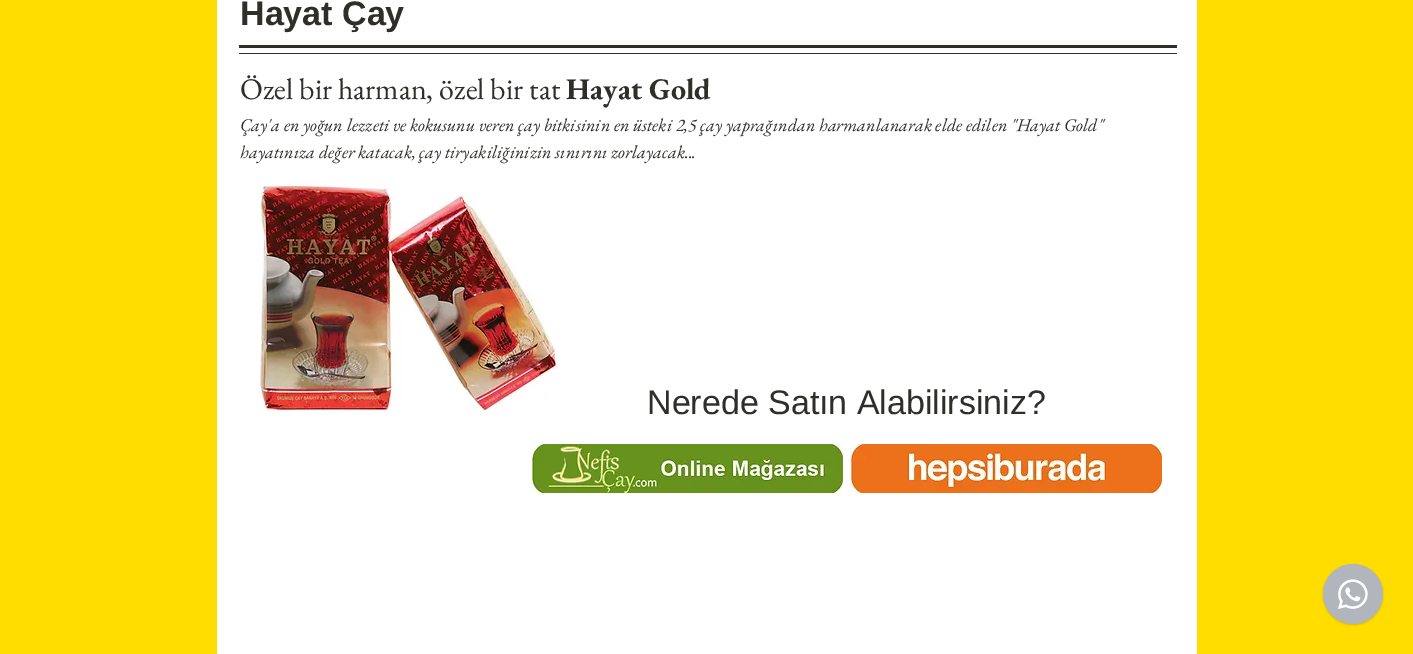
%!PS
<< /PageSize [1413 654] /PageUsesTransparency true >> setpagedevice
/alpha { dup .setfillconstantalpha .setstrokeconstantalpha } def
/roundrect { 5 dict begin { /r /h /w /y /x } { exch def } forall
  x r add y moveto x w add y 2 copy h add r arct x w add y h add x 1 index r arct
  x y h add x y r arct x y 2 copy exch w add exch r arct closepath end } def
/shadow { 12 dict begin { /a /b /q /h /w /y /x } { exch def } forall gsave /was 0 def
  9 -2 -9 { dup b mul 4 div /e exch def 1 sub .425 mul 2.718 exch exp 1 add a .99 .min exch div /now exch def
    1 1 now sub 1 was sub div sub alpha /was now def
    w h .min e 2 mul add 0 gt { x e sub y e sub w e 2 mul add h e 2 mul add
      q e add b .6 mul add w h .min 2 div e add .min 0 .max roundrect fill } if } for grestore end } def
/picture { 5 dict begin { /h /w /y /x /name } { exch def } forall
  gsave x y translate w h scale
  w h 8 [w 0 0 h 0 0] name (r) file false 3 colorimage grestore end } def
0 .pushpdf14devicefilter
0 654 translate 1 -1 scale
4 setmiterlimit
1 0.867 0 setrgbcolor
0 0 1413 654 rectfill
1 setgray
217 0 980 654 rectfill
/LiberationSans-Bold [34 0 0 -34 0 0] selectfont
0.184 0.18 0.165 setrgbcolor
240 25 moveto (Hayat Çay) show
239 45 938 3 rectfill
239 53 938 1 rectfill
/EBGaramond-Regular [30 0 0 -30 0 0] selectfont
240 99 moveto (Özel bir harman, özel bir tat) show
/EBGaramond-Bold [30 0 0 -30 0 0] selectfont
566 99 moveto (Hayat Gold) show
/EBGaramond-Italic [18 0 0 -18 0 0] selectfont
240 131 moveto (Çay'a en yoğun lezzeti ve kokusunu veren çay bitkisinin en üsteki 2,5 çay yaprağından harmanlanarak elde edilen "Hayat Gold") show
240 158 moveto (hayatınıza değer katacak, çay tiryakiliğinizin sınırını zorlayacak...) show
(img1.rgb) 260 182 297 232 picture
/LiberationSans-Regular [34 0 0 -34 0 0] selectfont
647 414 moveto (Nerede Satın Alabilirsiniz?) show
(img2.rgb) 532 444 311 49 picture
(img3.rgb) 851 444 311 49 picture
0 setgray
1323 565 60 60 30 1 0.15 shadow
0.69 0.714 0.733 setrgbcolor
newpath 1353 594 30 0 360 arc closepath fill
(img4.rgb) 1338 579 30 30 picture
.poppdf14devicefilter showpage
